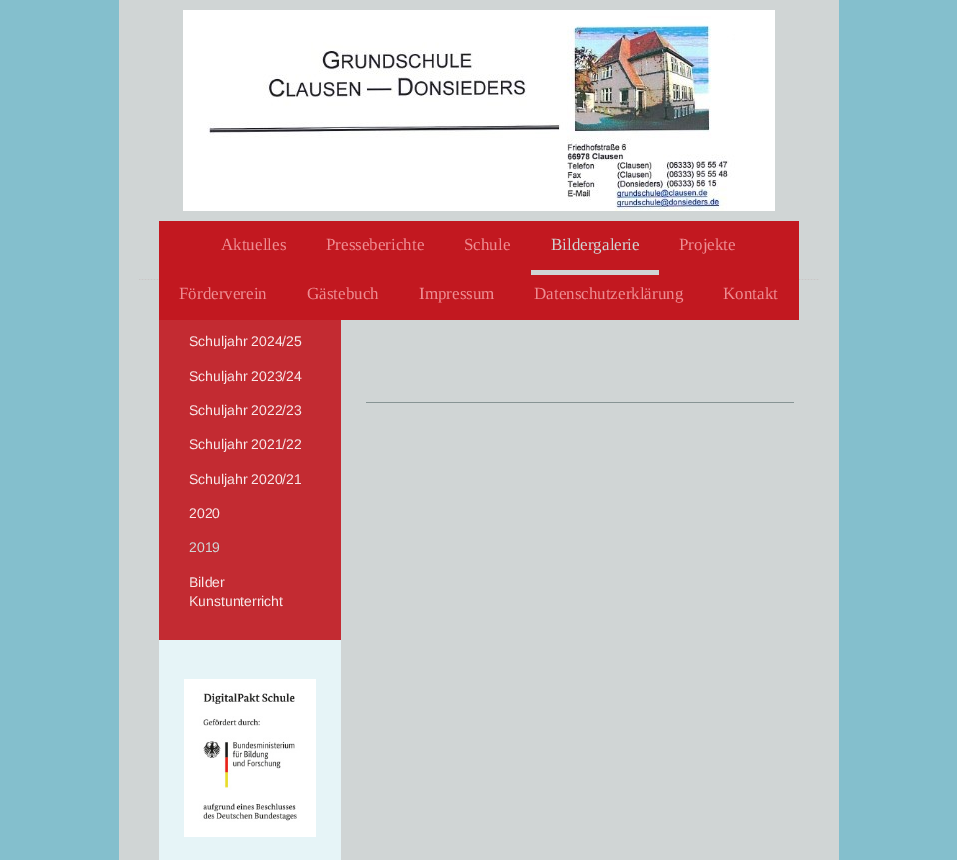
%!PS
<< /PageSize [957 860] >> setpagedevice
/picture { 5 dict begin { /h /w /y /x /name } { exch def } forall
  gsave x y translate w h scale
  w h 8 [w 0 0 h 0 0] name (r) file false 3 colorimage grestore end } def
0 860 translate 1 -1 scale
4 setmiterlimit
0.518 0.749 0.804 setrgbcolor
0 0 957 860 rectfill
0.816 0.835 0.835 setrgbcolor
119 0 720 860 rectfill
0.765 0.169 0.196 setrgbcolor
159 320 182 320 rectfill
(img1.rgb) 183 10 592 201 picture
(img2.rgb) 139 279 680 1 picture
(img3.rgb) 139 279 680 1 picture
0.761 0.094 0.125 setrgbcolor
159 221 640 99 rectfill
/LiberationSerif-Regular [17 0 0 -17 0 0] selectfont
0.933 0.553 0.573 setrgbcolor
221 250 moveto (Aktuelles) show
326 250 moveto (Presseberichte) show
464 250 moveto (Schule) show
0.816 0.835 0.835 setrgbcolor
531 270 128 5 rectfill
551 250 moveto (Bildergalerie) show
0.933 0.553 0.573 setrgbcolor
679 250 moveto (Projekte) show
179 299 moveto (Förderverein) show
307 299 moveto (Gästebuch) show
419 299 moveto (Impressum) show
534 299 moveto (Datenschutzerklärung) show
723 299 moveto (Kontakt) show
/LiberationSans-Regular [14 0 0 -14 0 0] selectfont
0.976 0.91 0.914 setrgbcolor
189 346 moveto (Schuljahr 2024/25) show
189 381 moveto (Schuljahr 2023/24) show
189 415 moveto (Schuljahr 2022/23) show
189 449 moveto (Schuljahr 2021/22) show
189 484 moveto (Schuljahr 2020/21) show
189 518 moveto (2020) show
0.816 0.835 0.835 setrgbcolor
189 552 moveto (2019) show
0.976 0.91 0.914 setrgbcolor
189 587 moveto (Bilder) show
189 606 moveto (Kunstunterricht) show
0.902 0.957 0.969 setrgbcolor
159 640 182 220 rectfill
(img4.rgb) 184 679 132 158 picture
0.529 0.58 0.58 setrgbcolor
366 402 428 1 rectfill
showpage
